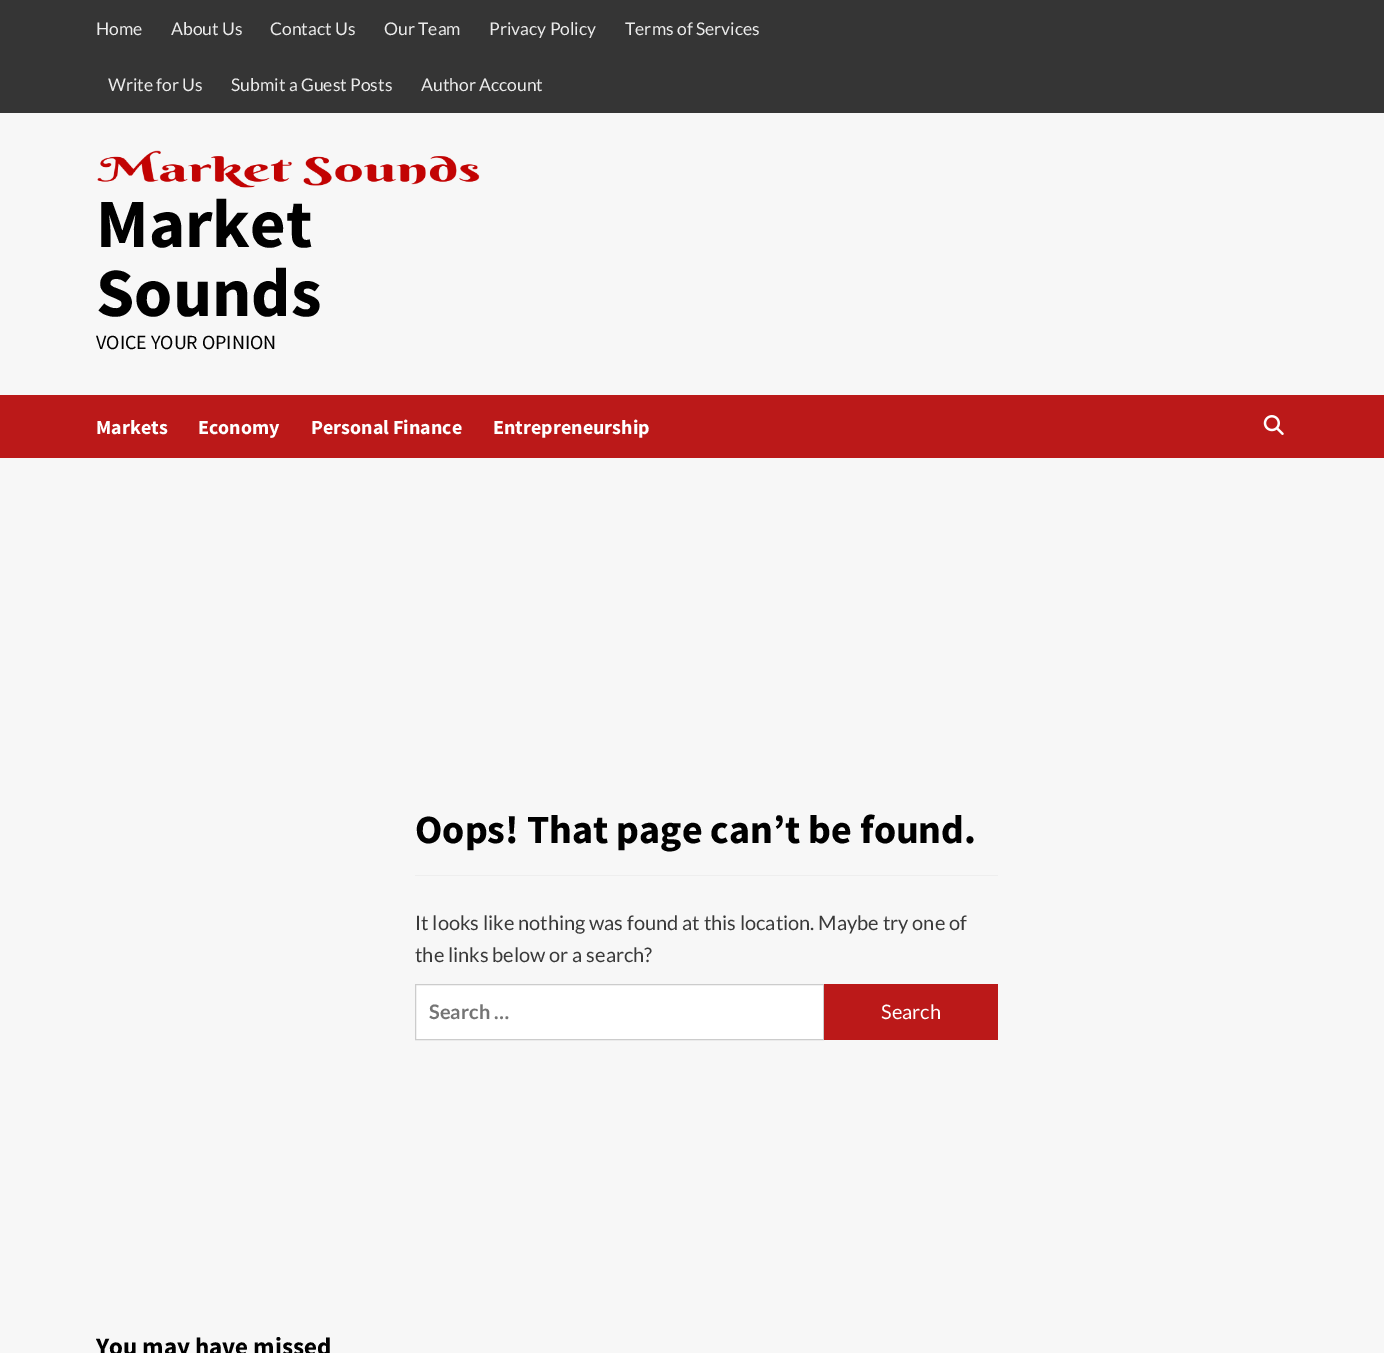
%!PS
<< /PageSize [1384 1353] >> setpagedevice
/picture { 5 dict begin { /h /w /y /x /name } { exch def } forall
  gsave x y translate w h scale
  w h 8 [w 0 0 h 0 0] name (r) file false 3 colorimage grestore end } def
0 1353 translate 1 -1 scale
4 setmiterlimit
0.969 setgray
0 0 1384 1353 rectfill
0.208 setgray
0 0 1384 113 rectfill
/Lato-Regular [17.5 0 0 -17.5 0 0] selectfont
0.922 setgray
96 35 moveto (Home) show
171 35 moveto (About Us) show
270 35 moveto (Contact Us) show
384 35 moveto (Our Team) show
489 35 moveto (Privacy Policy) show
625 35 moveto (Terms of Services) show
108 91 moveto (Write for Us) show
231 91 moveto (Submit a Guest Posts) show
421 91 moveto (Author Account) show
(img1.rgb) 97 150 383 38 picture
/SourceSansPro-Bold [69 0 0 -69 0 0] selectfont
0 setgray
96 247 moveto (Market) show
96 316 moveto (Sounds) show
/SourceSansPro-Regular [20 0 0 -20 0 0] selectfont
96 349 moveto (VOICE YOUR OPINION) show
0.733 0.098 0.098 setrgbcolor
0 395 1384 63 rectfill
/SourceSansPro-Bold [20 0 0 -20 0 0] selectfont
1 setgray
96 434 moveto (Markets) show
198 434 moveto (Economy) show
311 434 moveto (Personal Finance) show
493 434 moveto (Entrepreneurship) show
(img2.rgb) 1263 415 21 20 picture
0.933 setgray
415 875 583 1 rectfill
/SourceSansPro-Bold [40 0 0 -40 0 0] selectfont
0 setgray
415 843 moveto (Oops! That page can’t be found.) show
/Lato-Regular [20 0 0 -20 0 0] selectfont
0.227 setgray
415 930 moveto (It looks like nothing was found at this location. Maybe try one of) show
415 962 moveto (the links below or a search?) show
1 setgray
newpath 415.5 984.5 moveto 823.5 984.5 lineto 823.5 1039.5 lineto 415.5 1039.5 lineto closepath gsave fill grestore
0.8 setgray
stroke
/Lato-Bold [20 0 0 -20 0 0] selectfont
0.459 setgray
429 1019 moveto (Search …) show
0.733 0.098 0.098 setrgbcolor
824 984 174 56 rectfill
/Lato-Regular [20 0 0 -20 0 0] selectfont
1 setgray
881 1019 moveto (Search) show
/SourceSansPro-Bold [25 0 0 -25 0 0] selectfont
0 setgray
96 1355 moveto (You may have missed) show
showpage
